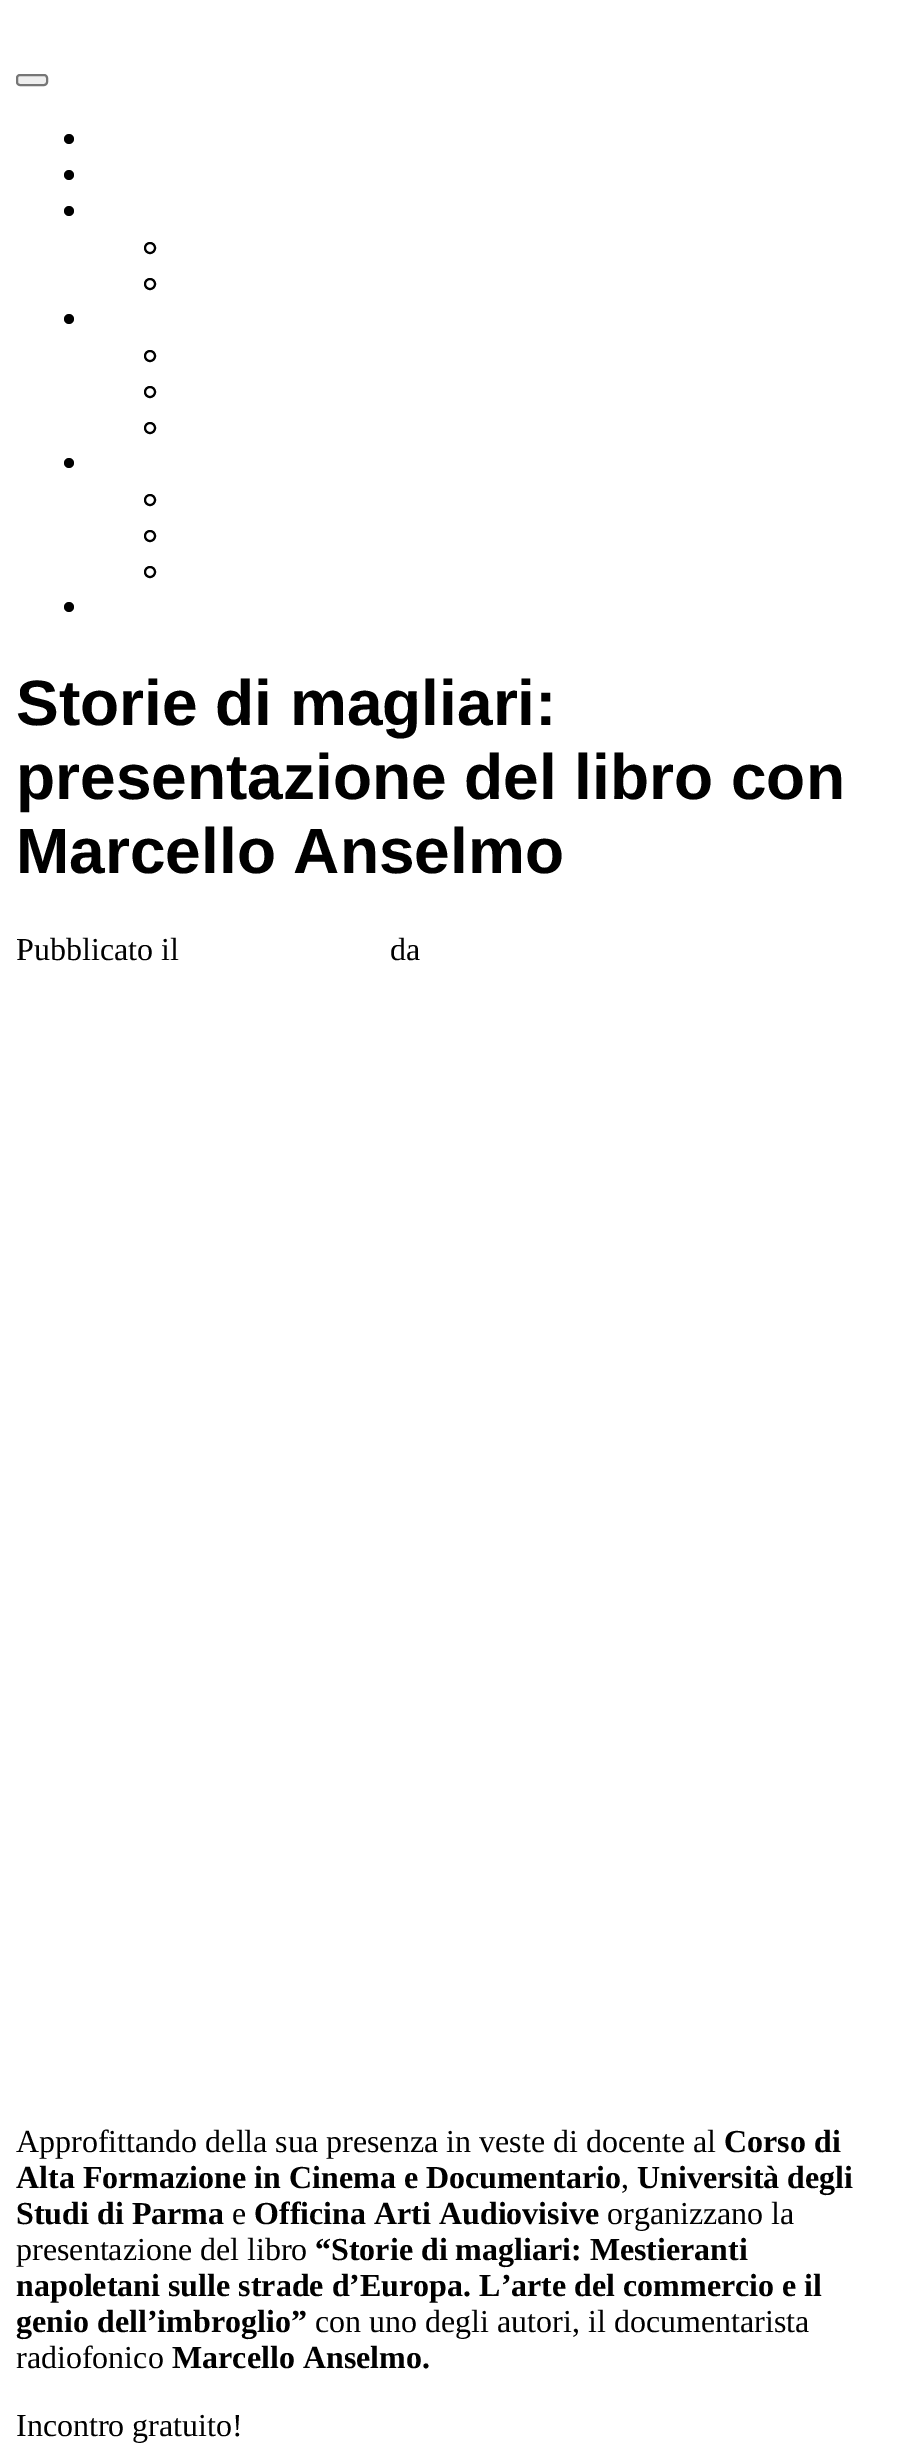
%!PS
<< /PageSize [899 2450] >> setpagedevice
/roundrect { 5 dict begin { /r /h /w /y /x } { exch def } forall
  x r add y moveto x w add y 2 copy h add r arct x w add y h add x 1 index r arct
  x y h add x y r arct x y 2 copy exch w add exch r arct closepath end } def
0 2450 translate 1 -1 scale
4 setmiterlimit
1 setgray
0 0 899 2450 rectfill
0.937 setgray
17 75 30 10 3 roundrect gsave fill grestore
0.463 setgray
2 setlinewidth
stroke
0 setgray
newpath 69 139 5 0 360 arc closepath fill
newpath 69 175 5 0 360 arc closepath fill
newpath 69 211 5 0 360 arc closepath fill
newpath 150 248 5 0 360 arc closepath stroke
newpath 150 284 5 0 360 arc closepath stroke
newpath 69 319 5 0 360 arc closepath fill
newpath 150 356 5 0 360 arc closepath stroke
newpath 150 392 5 0 360 arc closepath stroke
newpath 150 428 5 0 360 arc closepath stroke
newpath 69 463 5 0 360 arc closepath fill
newpath 150 500 5 0 360 arc closepath stroke
newpath 150 536 5 0 360 arc closepath stroke
newpath 150 572 5 0 360 arc closepath stroke
newpath 69 607 5 0 360 arc closepath fill
/LiberationSans-Bold [64 0 0 -64 0 0] selectfont
16 725 moveto (Storie di magliari:) show
16 799 moveto (presentazione del libro con) show
16 873 moveto (Marcello Anselmo) show
/LiberationSerif-Regular [32 0 0 -32 0 0] selectfont
16 960 moveto (Pubblicato il) show
390 960 moveto (da) show
16 2152 moveto (Approfittando della sua presenza in veste di docente al) show
/LiberationSerif-Bold [32 0 0 -32 0 0] selectfont
724 2152 moveto (Corso di) show
16 2188 moveto (Alta Formazione in Cinema e Documentario) show
/LiberationSerif-Regular [32 0 0 -32 0 0] selectfont
621 2188 moveto (,) show
/LiberationSerif-Bold [32 0 0 -32 0 0] selectfont
637 2188 moveto (Università degli) show
16 2224 moveto (Studi di Parma) show
/LiberationSerif-Regular [32 0 0 -32 0 0] selectfont
232 2224 moveto (e) show
/LiberationSerif-Bold [32 0 0 -32 0 0] selectfont
254 2224 moveto (Officina Arti Audiovisive) show
/LiberationSerif-Regular [32 0 0 -32 0 0] selectfont
607 2224 moveto (organizzano la) show
16 2260 moveto (presentazione del libro) show
/LiberationSerif-Bold [32 0 0 -32 0 0] selectfont
315 2260 moveto (“Storie di magliari: Mestieranti) show
16 2296 moveto (napoletani sulle strade d’Europa. L’arte del commercio e il) show
16 2332 moveto (genio dell’imbroglio”) show
/LiberationSerif-Regular [32 0 0 -32 0 0] selectfont
315 2332 moveto (con uno degli autori, il documentarista) show
16 2368 moveto (radiofonico) show
/LiberationSerif-Bold [32 0 0 -32 0 0] selectfont
172 2368 moveto (Marcello Anselmo.) show
/LiberationSerif-Regular [32 0 0 -32 0 0] selectfont
16 2436 moveto (Incontro gratuito!) show
showpage
